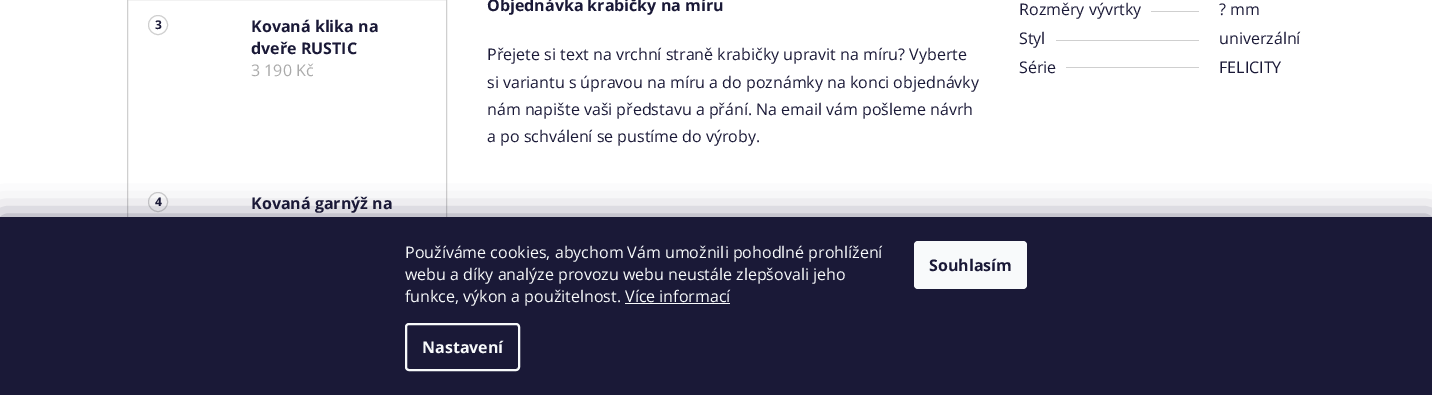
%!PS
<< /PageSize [1432 395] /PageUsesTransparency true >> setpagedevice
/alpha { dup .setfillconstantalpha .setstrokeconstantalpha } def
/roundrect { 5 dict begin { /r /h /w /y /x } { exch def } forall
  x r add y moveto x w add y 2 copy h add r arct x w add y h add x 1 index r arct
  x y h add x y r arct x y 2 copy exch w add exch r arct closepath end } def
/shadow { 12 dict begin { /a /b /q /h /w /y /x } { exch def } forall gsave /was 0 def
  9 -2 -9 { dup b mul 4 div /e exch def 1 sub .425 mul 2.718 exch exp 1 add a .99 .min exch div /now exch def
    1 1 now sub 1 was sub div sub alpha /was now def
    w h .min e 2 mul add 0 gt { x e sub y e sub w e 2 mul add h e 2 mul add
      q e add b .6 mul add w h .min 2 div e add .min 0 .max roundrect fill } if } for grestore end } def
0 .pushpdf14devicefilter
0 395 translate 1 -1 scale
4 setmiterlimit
1 setgray
0 0 1432 395 rectfill
0.812 setgray
127.5 -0.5 319 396 rectstroke
newpath 158 25 9.5 0 360 arc closepath stroke
/OpenSans-Bold [12 0 0 -12 0 0] selectfont
0.102 0.098 0.216 setrgbcolor
155 29 moveto (3) show
/OpenSans-Bold [16 0 0 -16 0 0] selectfont
251 32 moveto (Kovaná klika na) show
251 54 moveto (dveře RUSTIC) show
/OpenSans-Regular [16 0 0 -16 0 0] selectfont
0.667 setgray
251 76 moveto (3 190 Kč) show
0.812 setgray
newpath 158 202 9.5 0 360 arc closepath stroke
/OpenSans-Bold [12 0 0 -12 0 0] selectfont
0.102 0.098 0.216 setrgbcolor
155 206 moveto (4) show
/OpenSans-Bold [16 0 0 -16 0 0] selectfont
251 209 moveto (Kovaná garnýž na) show
487 11 moveto (Objednávka krabičky na míru) show
/OpenSans-Regular [16 0 0 -16 0 0] selectfont
487 60 moveto (Přejete si text na vrchní straně krabičky upravit na míru? Vyberte) show
487 88 moveto (si variantu s úpravou na míru a do poznámky na konci objednávky) show
487 115 moveto (nám napište vaši představu a přání. Na email vám pošleme návrh) show
487 142 moveto (a po schválení se pustíme do výroby.) show
1019 15 moveto (Rozměry vývrtky) show
0.812 setgray
1151 11 48 1 rectfill
0.102 0.098 0.216 setrgbcolor
1219 15 moveto (? mm) show
1019 44 moveto (Styl) show
0.812 setgray
1056 40 143 1 rectfill
0.102 0.098 0.216 setrgbcolor
1219 44 moveto (univerzální) show
1019 73 moveto (Série) show
0.812 setgray
1066 67 133 1 rectfill
0.102 0.098 0.216 setrgbcolor
1219 73 moveto (FELICITY) show
0.106 0.098 0.224 setrgbcolor
0 217 1432 178 0 15 0.5 shadow
0.102 0.098 0.216 setrgbcolor
0 217 1432 178 rectfill
0.973 0.98 0.984 setrgbcolor
405 258 moveto (Používáme cookies, abychom Vám umožnili pohodlné prohlížení) show
405 280 moveto (webu a díky analýze provozu webu neustále zlepšovali jeho) show
405 302 moveto (funkce, výkon a použitelnost. Více informací) show
625 303 105 1 rectfill
2 setlinewidth
406 324 113 46 3 roundrect stroke
/OpenSans-Bold [16 0 0 -16 0 0] selectfont
422 353 moveto (Nastavení) show
914 241 113 48 4 roundrect fill
0.102 0.098 0.216 setrgbcolor
929 271 moveto (Souhlasím) show
.poppdf14devicefilter showpage
